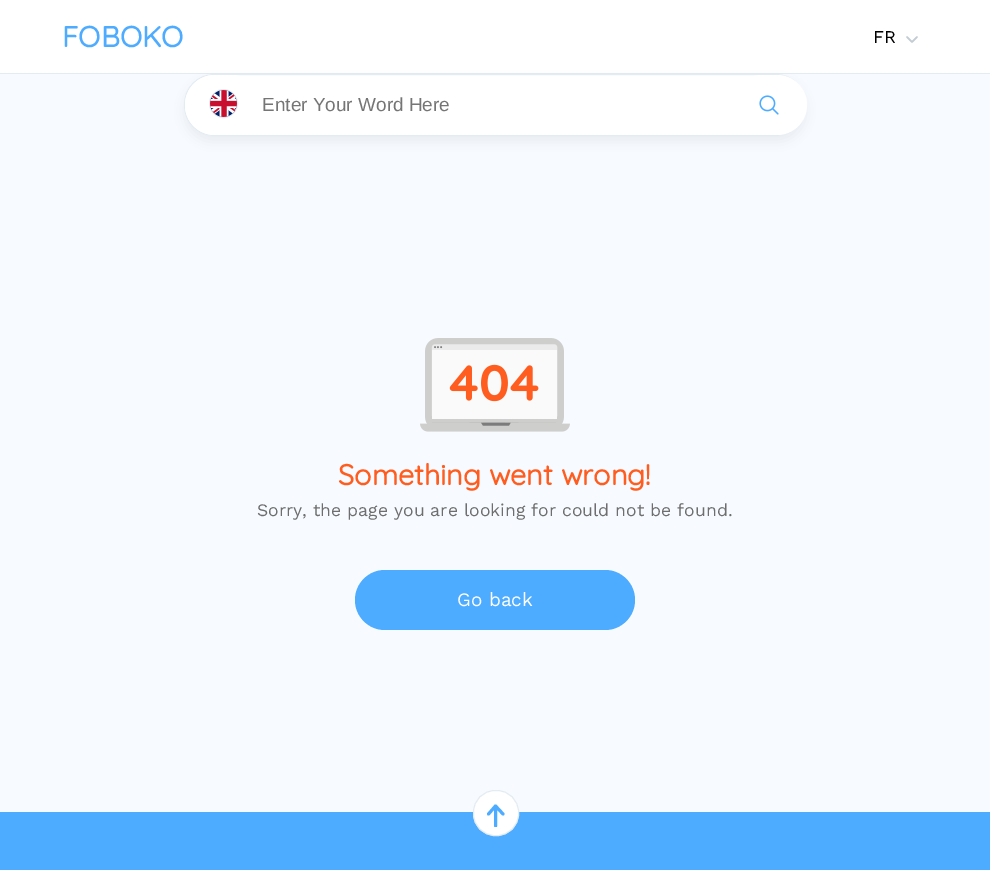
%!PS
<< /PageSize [990 870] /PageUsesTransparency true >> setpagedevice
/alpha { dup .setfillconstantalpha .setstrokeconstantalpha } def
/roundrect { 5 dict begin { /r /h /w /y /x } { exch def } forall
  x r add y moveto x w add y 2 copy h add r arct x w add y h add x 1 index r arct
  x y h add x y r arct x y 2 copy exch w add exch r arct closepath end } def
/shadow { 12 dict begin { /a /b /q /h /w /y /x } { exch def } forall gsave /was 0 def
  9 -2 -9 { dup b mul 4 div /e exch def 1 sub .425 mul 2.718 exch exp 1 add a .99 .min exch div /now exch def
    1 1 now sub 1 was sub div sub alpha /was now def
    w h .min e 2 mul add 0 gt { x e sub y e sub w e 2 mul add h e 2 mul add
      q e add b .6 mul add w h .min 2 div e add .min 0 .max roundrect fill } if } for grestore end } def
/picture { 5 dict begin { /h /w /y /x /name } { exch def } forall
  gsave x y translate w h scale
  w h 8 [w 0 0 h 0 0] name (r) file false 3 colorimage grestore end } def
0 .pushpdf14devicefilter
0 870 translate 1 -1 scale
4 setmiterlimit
0.969 0.984 1 setrgbcolor
0 0 990 870 rectfill
1 setgray
0 0 990 73 rectfill
0.894 0.925 0.953 setrgbcolor
0 73 990 1 rectfill
/Quicksand-Bold [29 0 0 -29 0 0] selectfont
0.302 0.675 1 setrgbcolor
62 47 moveto (FOBOKO) show
/WorkSans-Regular [18 0 0 -18 0 0] selectfont
0 setgray
873 43 moveto (FR) show
0.765 0.796 0.827 setrgbcolor
1.5 setlinewidth
1 setlinecap
1 setlinejoin
newpath 917 37 moveto 912 42 lineto 907 37 lineto stroke
0.62 setgray
184 80 622 62 30 6 0.16 shadow
1 setgray
184.5 74.5 621 61 29.5 roundrect gsave fill grestore
0.894 0.925 0.953 setrgbcolor
1 setlinewidth
0 setlinecap
0 setlinejoin
stroke
1 setgray
185 75 77 60 30 roundrect fill
0.894 0.925 0.953 setrgbcolor
newpath 223.5 103.5 14 0 360 arc closepath stroke
(img1.rgb) 210 90 27 27 picture
/LiberationSans-Regular [19 0 0 -19 0 0] selectfont
0.459 setgray
262 111 moveto (Enter Your Word Here) show
1 setgray
732 75 75 60 30 roundrect fill
(img2.rgb) 759 95 20 20 picture
(img3.rgb) 420 338 150 94 picture
/Quicksand-Bold [28.75 0 0 -28.75 0 0] selectfont
1 0.365 0.125 setrgbcolor
338 485 moveto (Something went wrong!) show
/WorkSans-Regular [17.6 0 0 -17.6 0 0] selectfont
0.431 setgray
257 516 moveto (Sorry, the page you are looking for could not be found.) show
0.302 0.675 1 setrgbcolor
355 570 280 60 30 roundrect fill
/WorkSans-Regular [19 0 0 -19 0 0] selectfont
1 setgray
457 606 moveto (Go back) show
0.302 0.675 1 setrgbcolor
0 812 990 58 rectfill
1 setgray
473.5 790.5 45 45 21.5 roundrect gsave fill grestore
0.894 0.925 0.953 setrgbcolor
stroke
gsave
487 804 18 23 rectclip
0.302 0.675 1 setrgbcolor
3 setlinewidth
1 setlinecap
1 setlinejoin
newpath 495.5 826 moveto 495.5 806 lineto 495.5 806 moveto 488.5 814 lineto 495.5 806 moveto 503 814 lineto stroke
grestore
.poppdf14devicefilter showpage
